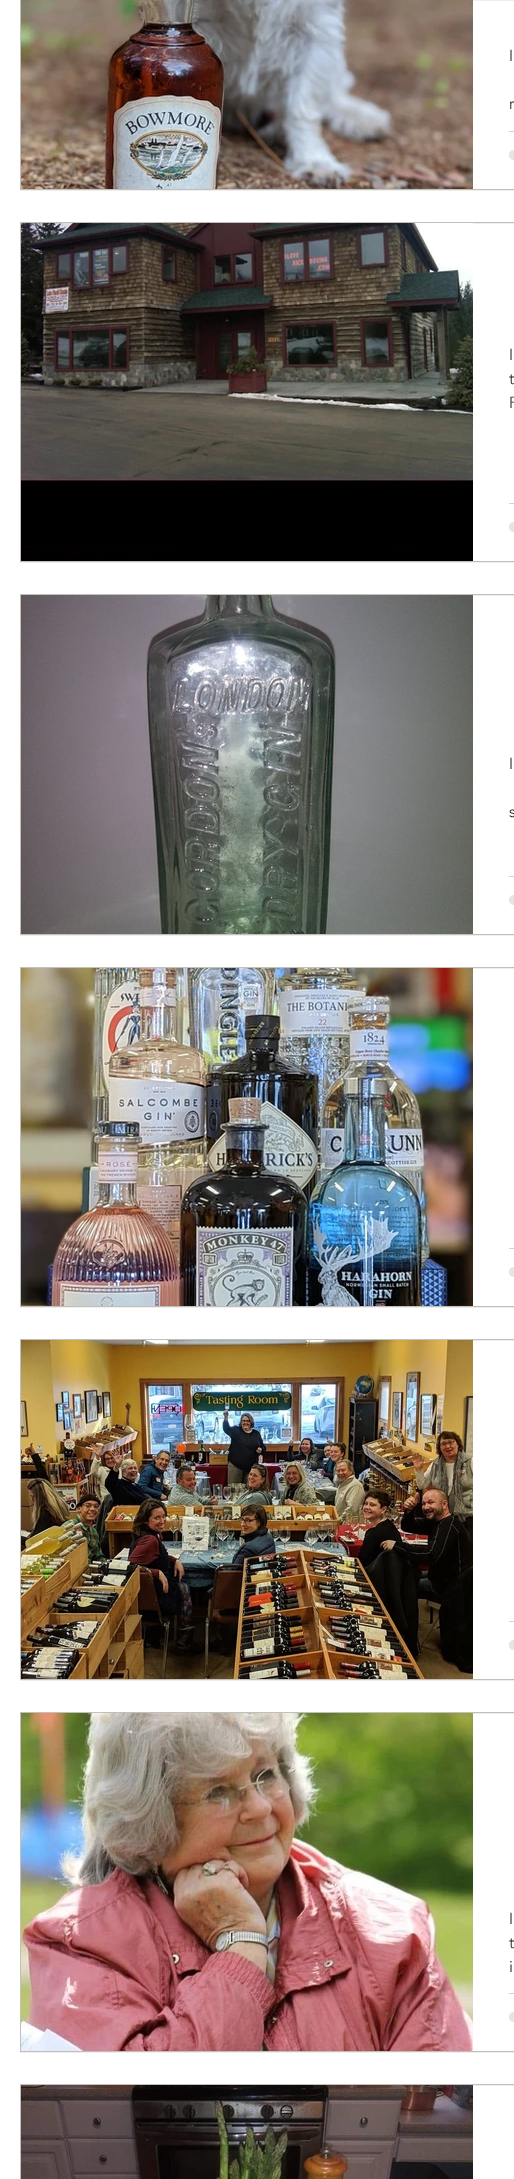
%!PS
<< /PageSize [514 2179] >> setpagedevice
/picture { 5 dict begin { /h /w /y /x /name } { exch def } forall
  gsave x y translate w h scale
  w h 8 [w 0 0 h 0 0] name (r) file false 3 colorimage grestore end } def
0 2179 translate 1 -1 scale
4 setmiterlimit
1 setgray
0 0 514 2179 rectfill
0.761 0.749 0.722 setrgbcolor
20.5 -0.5 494 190 rectstroke
(img1.rgb) 21 0 452 189 picture
/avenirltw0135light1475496-Light [16 0 0 -16 0 0] selectfont
0.153 0.145 0.129 setrgbcolor
509 61 moveto (I) show
509 109 moveto (r) show
0.831 0.827 0.827 setrgbcolor
509 131 5 1 rectfill
0.898 0.898 0.894 setrgbcolor
newpath 514 155 5 0 360 arc closepath fill
0.761 0.749 0.722 setrgbcolor
20.5 222.5 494 339 rectstroke
(img2.rgb) 21 223 452 322 picture
(img3.rgb) 21 545 452 16 picture
0.153 0.145 0.129 setrgbcolor
509 360 moveto (I) show
509 384 moveto (t) show
509 408 moveto (P) show
0.831 0.827 0.827 setrgbcolor
509 503 5 1 rectfill
0.898 0.898 0.894 setrgbcolor
newpath 514 527 5 0 360 arc closepath fill
0.761 0.749 0.722 setrgbcolor
20.5 594.5 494 340 rectstroke
(img4.rgb) 21 595 452 339 picture
0.153 0.145 0.129 setrgbcolor
509 769 moveto (I) show
509 817 moveto (s) show
0.831 0.827 0.827 setrgbcolor
509 876 5 1 rectfill
0.898 0.898 0.894 setrgbcolor
newpath 514 900 5 0 360 arc closepath fill
0.761 0.749 0.722 setrgbcolor
20.5 967.5 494 339 rectstroke
(img5.rgb) 21 968 452 338 picture
0.831 0.827 0.827 setrgbcolor
509 1248 5 1 rectfill
0.898 0.898 0.894 setrgbcolor
newpath 514 1272 5 0 360 arc closepath fill
0.761 0.749 0.722 setrgbcolor
20.5 1339.5 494 340 rectstroke
(img6.rgb) 21 1340 452 339 picture
0.831 0.827 0.827 setrgbcolor
509 1621 5 1 rectfill
0.898 0.898 0.894 setrgbcolor
newpath 514 1645 5 0 360 arc closepath fill
0.761 0.749 0.722 setrgbcolor
20.5 1712.5 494 339 rectstroke
(img7.rgb) 21 1713 452 338 picture
0.153 0.145 0.129 setrgbcolor
509 1924 moveto (I) show
509 1948 moveto (t) show
509 1972 moveto (i) show
0.831 0.827 0.827 setrgbcolor
509 1993 5 1 rectfill
0.898 0.898 0.894 setrgbcolor
newpath 514 2017 5 0 360 arc closepath fill
0.761 0.749 0.722 setrgbcolor
20.5 2084.5 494 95 rectstroke
(img8.rgb) 21 2085 452 94 picture
showpage
